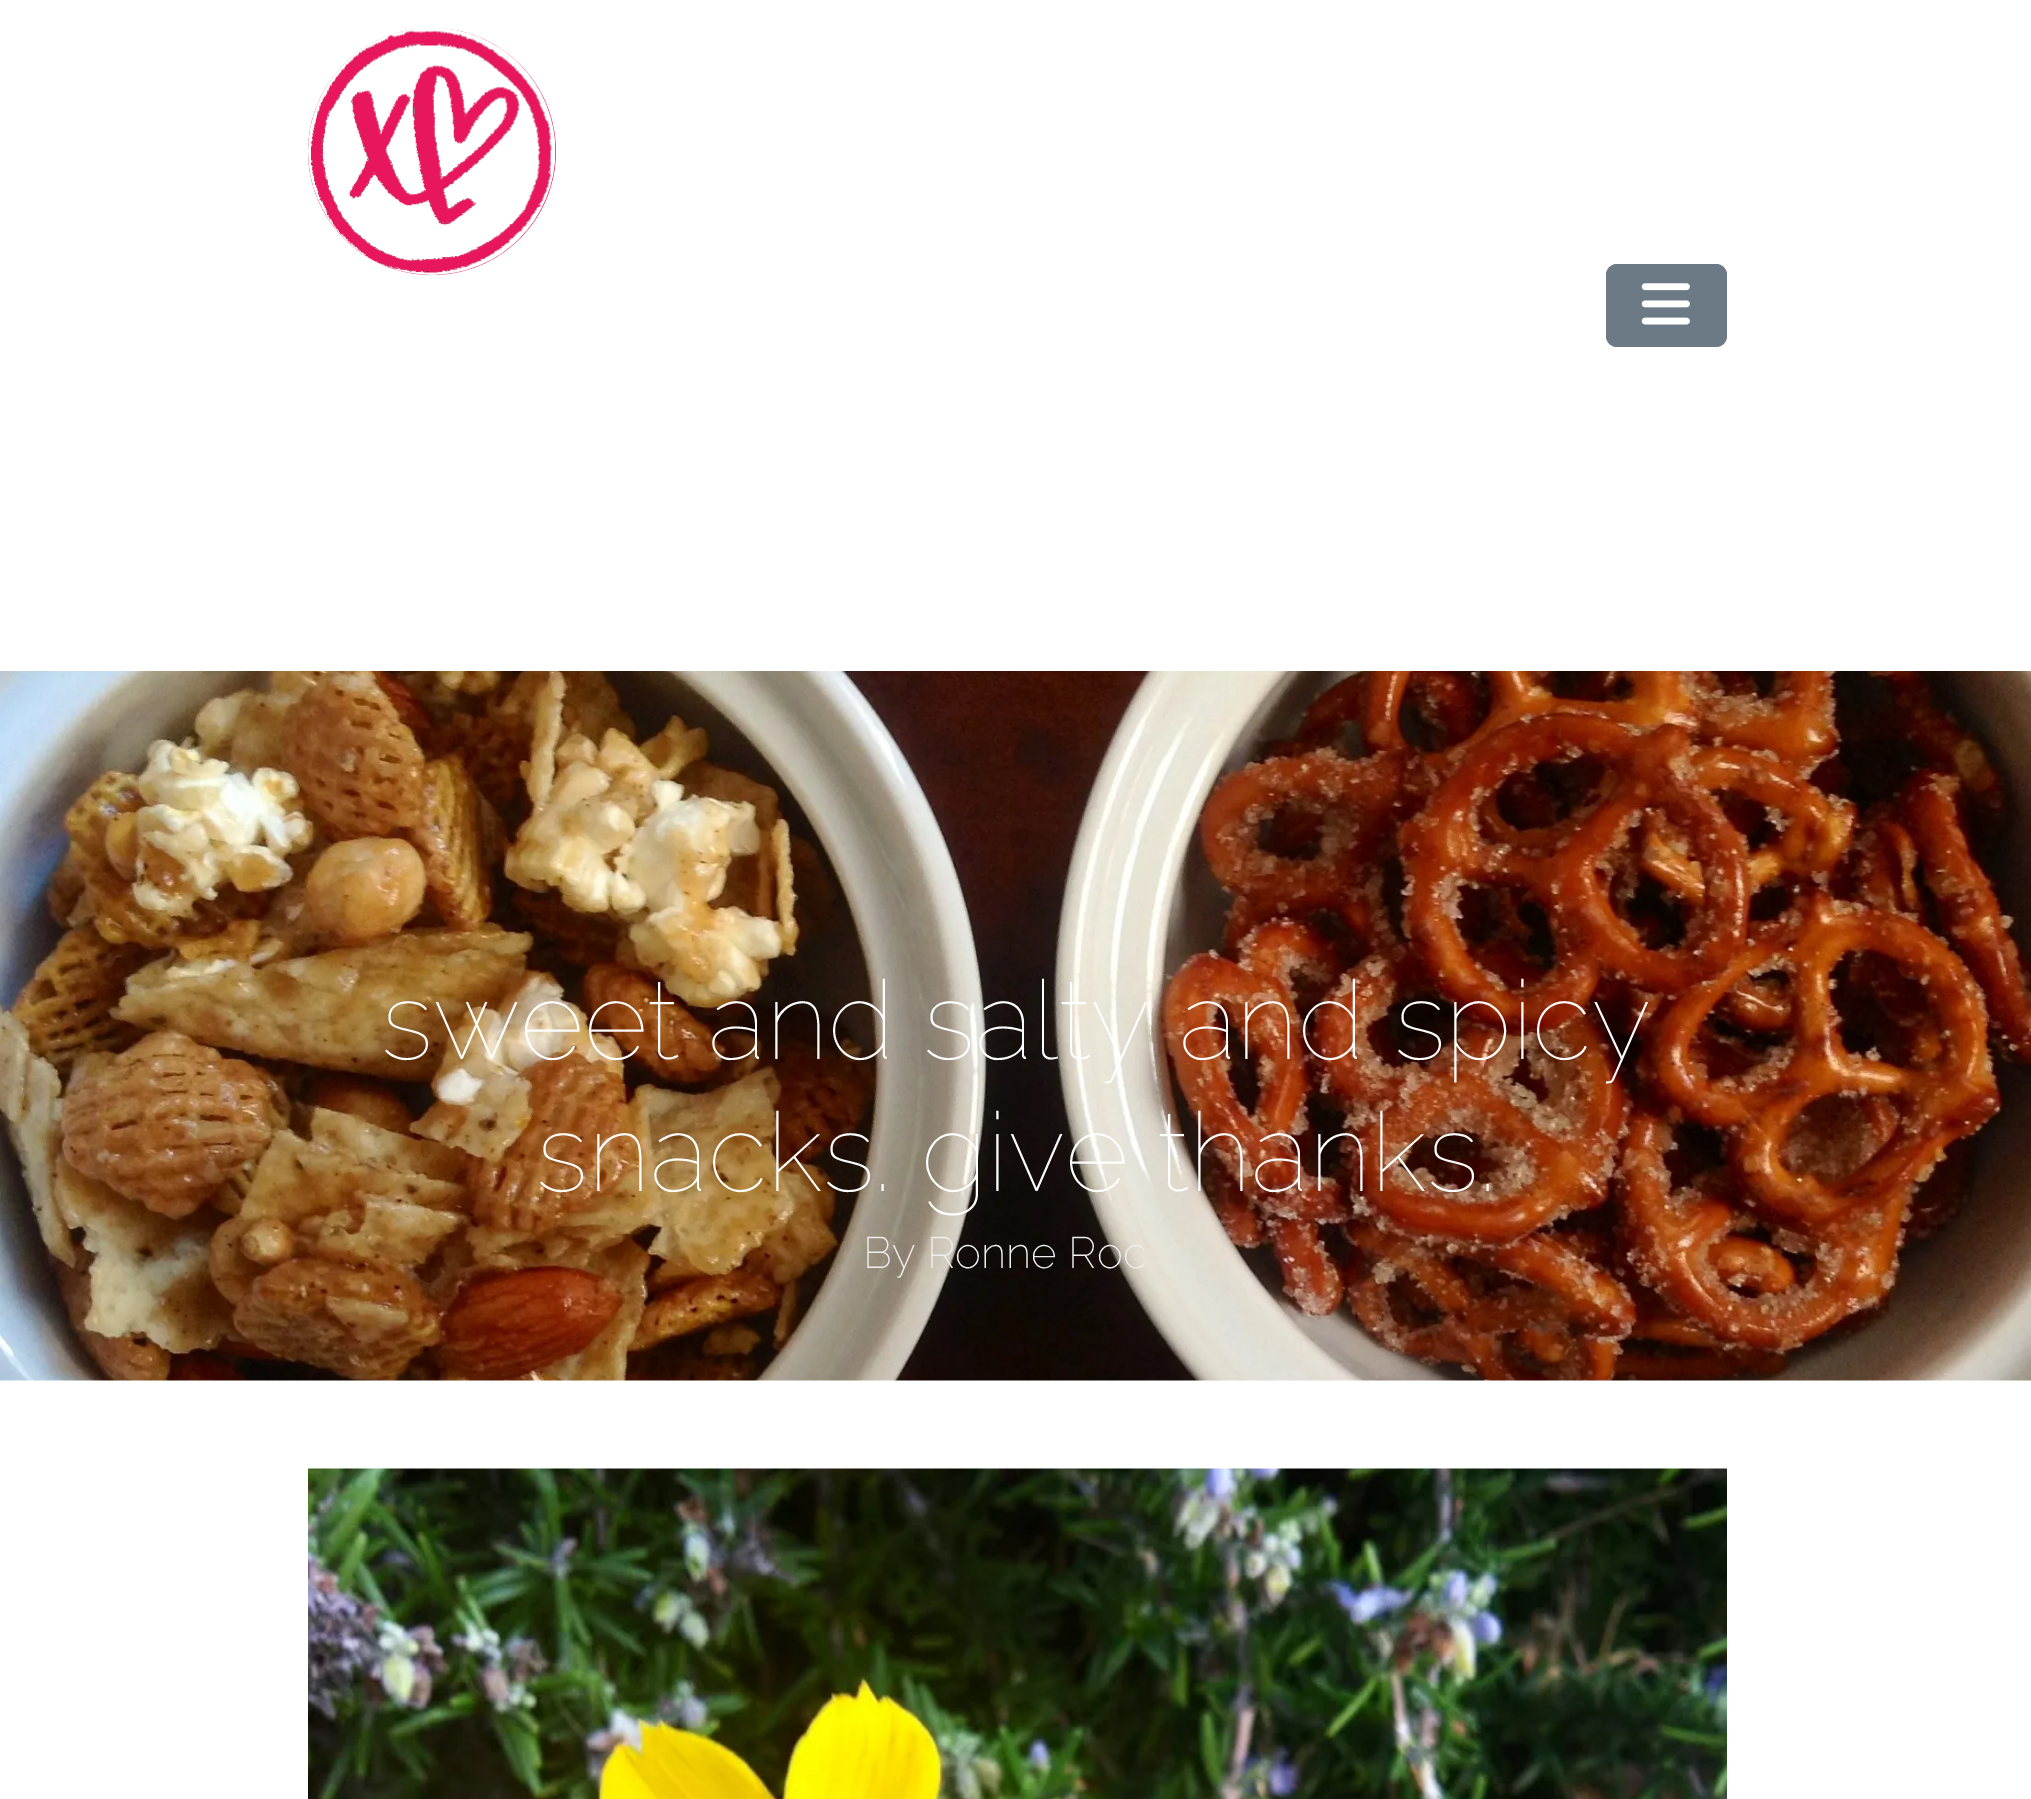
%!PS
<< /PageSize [2031 1799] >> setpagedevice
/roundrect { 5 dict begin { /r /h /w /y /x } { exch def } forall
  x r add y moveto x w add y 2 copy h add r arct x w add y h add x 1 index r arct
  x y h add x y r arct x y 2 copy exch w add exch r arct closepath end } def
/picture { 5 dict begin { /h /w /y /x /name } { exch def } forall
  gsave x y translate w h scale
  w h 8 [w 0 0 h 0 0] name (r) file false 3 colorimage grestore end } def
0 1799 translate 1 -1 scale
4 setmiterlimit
1 setgray
0 0 2031 1799 rectfill
0.91 0.09 0.365 setrgbcolor
308 28 248 247 123.5 roundrect fill
(img1.rgb) 308 28 248 247 picture
0.424 0.478 0.525 setrgbcolor
1606 264 121 83 11 roundrect fill
(img2.rgb) 1641 283 49 42 picture
(img3.rgb) 0 671 2031 710 picture
/Raleway-Thin [110 0 0 -110 0 0] selectfont
1 setgray
381 1059 moveto (sweet and salty and spicy) show
536 1191 moveto (snacks. give thanks.) show
/Raleway-ExtraLight [44 0 0 -44 0 0] selectfont
0.933 setgray
863 1268 moveto (By Ronne Roc) show
(img4.rgb) 308 1468 1419 331 picture
showpage
